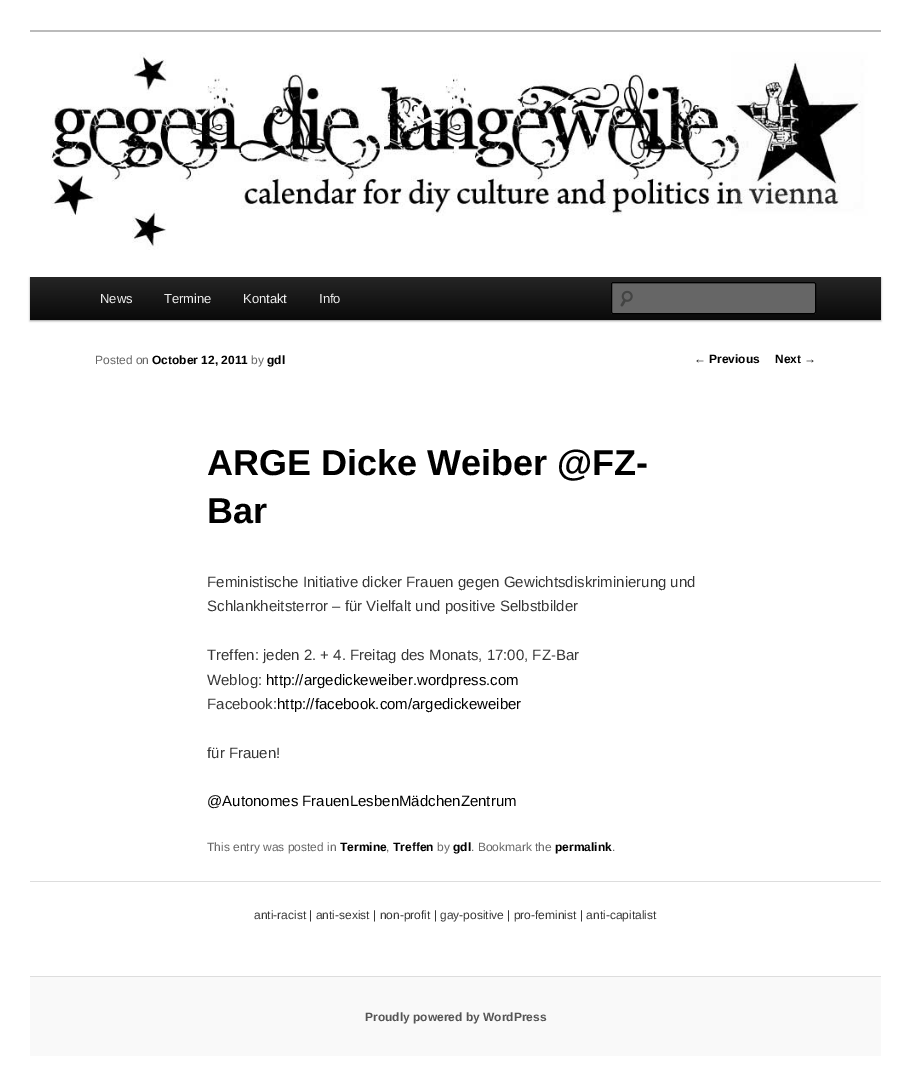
%!PS
<< /PageSize [911 1070] /PageUsesTransparency true >> setpagedevice
/alpha { dup .setfillconstantalpha .setstrokeconstantalpha } def
/roundrect { 5 dict begin { /r /h /w /y /x } { exch def } forall
  x r add y moveto x w add y 2 copy h add r arct x w add y h add x 1 index r arct
  x y h add x y r arct x y 2 copy exch w add exch r arct closepath end } def
/shadow { 12 dict begin { /a /b /q /h /w /y /x } { exch def } forall gsave /was 0 def
  9 -2 -9 { dup b mul 4 div /e exch def 1 sub .425 mul 2.718 exch exp 1 add a .99 .min exch div /now exch def
    1 1 now sub 1 was sub div sub alpha /was now def
    w h .min e 2 mul add 0 gt { x e sub y e sub w e 2 mul add h e 2 mul add
      q e add b .6 mul add w h .min 2 div e add .min 0 .max roundrect fill } if } for grestore end } def
/picture { 5 dict begin { /h /w /y /x /name } { exch def } forall
  gsave x y translate w h scale
  w h 8 [w 0 0 h 0 0] name (r) file false 3 colorimage grestore end } def
0 .pushpdf14devicefilter
0 1070 translate 1 -1 scale
4 setmiterlimit
1 setgray
0 0 911 1070 rectfill
0.733 setgray
30 30 851 2 rectfill
0 setgray
30 278 851 43 0 1 0.4 shadow
(img1.rgb) 30 52 851 225 picture
gsave newpath 30 277 moveto 881 277 lineto 881 320 lineto 30 320 lineto closepath clip newpath
<< /ShadingType 2 /ColorSpace /DeviceRGB /Coords [456 277 456 320] /Extend [true true] /Function << /FunctionType 2 /Domain [0 1] /C0 [0.145 0.145 0.145] /C1 [0.039 0.039 0.039] /N 1 >> >> shfill grestore
/LiberationSans-Regular [13 0 0 -13 0 0] selectfont
0.933 setgray
100 303 moveto (News) show
164 303 moveto (Termine) show
243 303 moveto (Kontakt) show
319 303 moveto (Info) show
0.4 setgray
611 282 205 32 2 roundrect fill
(img2.rgb) 620 290 13 17 picture
0.361 setgray
newpath 613 284 moveto 815 284 lineto 815 285 lineto 815 284 815 283 814 283 curveto 613 283 lineto 612 283 lineto 612 285 lineto 612 284 612 284 613 284 curveto closepath fill
0 setgray
611.5 282.5 204 31 1.5 roundrect stroke
/LiberationSans-Regular [12 0 0 -12 0 0] selectfont
0.4 setgray
95 364 moveto (Posted on) show
/LiberationSans-Bold [12 0 0 -12 0 0] selectfont
0 setgray
152 364 moveto (October 12, 2011) show
/LiberationSans-Regular [12 0 0 -12 0 0] selectfont
0.4 setgray
251 364 moveto (by) show
/LiberationSans-Bold [12 0 0 -12 0 0] selectfont
0 setgray
267 364 moveto (gdl) show
/LiberationSans-Bold [36 0 0 -36 0 0] selectfont
207 475 moveto (ARGE Dicke Weiber @FZ-) show
207 523 moveto (Bar) show
/LiberationSans-Regular [15 0 0 -15 0 0] selectfont
0.216 setgray
207 587 moveto (Feministische Initiative dicker Frauen gegen Gewichtsdiskriminierung und) show
207 611 moveto (Schlankheitsterror – für Vielfalt und positive Selbstbilder) show
207 660 moveto (Treffen: jeden 2. + 4. Freitag des Monats, 17:00, FZ-Bar) show
207 685 moveto (Weblog:) show
0 setgray
266 685 moveto (http://argedickeweiber.wordpress.com) show
0.216 setgray
207 709 moveto (Facebook:) show
0 setgray
277 709 moveto (http://facebook.com/argedickeweiber) show
0.216 setgray
207 758 moveto (für Frauen!) show
0 setgray
207 806 moveto (@Autonomes FrauenLesbenMädchenZentrum) show
/LiberationSans-Regular [12 0 0 -12 0 0] selectfont
0.4 setgray
207 851 moveto (This entry was posted in) show
/LiberationSans-Bold [12 0 0 -12 0 0] selectfont
0 setgray
340 851 moveto (Termine) show
/LiberationSans-Regular [12 0 0 -12 0 0] selectfont
0.4 setgray
386 851 moveto (,) show
/LiberationSans-Bold [12 0 0 -12 0 0] selectfont
0 setgray
393 851 moveto (Treffen) show
/LiberationSans-Regular [12 0 0 -12 0 0] selectfont
0.4 setgray
437 851 moveto (by) show
/LiberationSans-Bold [12 0 0 -12 0 0] selectfont
0 setgray
453 851 moveto (gdl) show
/LiberationSans-Regular [12 0 0 -12 0 0] selectfont
0.4 setgray
471 851 moveto (. Bookmark the) show
/LiberationSans-Bold [12 0 0 -12 0 0] selectfont
0 setgray
555 851 moveto (permalink) show
/LiberationSans-Regular [12 0 0 -12 0 0] selectfont
0.4 setgray
612 851 moveto (.) show
0 setgray
694 363 moveto (←) show
/LiberationSans-Bold [12 0 0 -12 0 0] selectfont
709 363 moveto (Previous) show
775 363 moveto (Next) show
/LiberationSans-Regular [12 0 0 -12 0 0] selectfont
804 363 moveto (→) show
0.867 setgray
30 881 851 1 rectfill
0.216 setgray
254 919 moveto (anti-racist | anti-sexist | non-profit | gay-positive | pro-feminist | anti-capitalist) show
0.976 setgray
30 977 851 79 rectfill
0.867 setgray
30 976 851 1 rectfill
/LiberationSans-Bold [12 0 0 -12 0 0] selectfont
0.333 setgray
365 1021 moveto (Proudly powered by WordPress) show
.poppdf14devicefilter showpage
